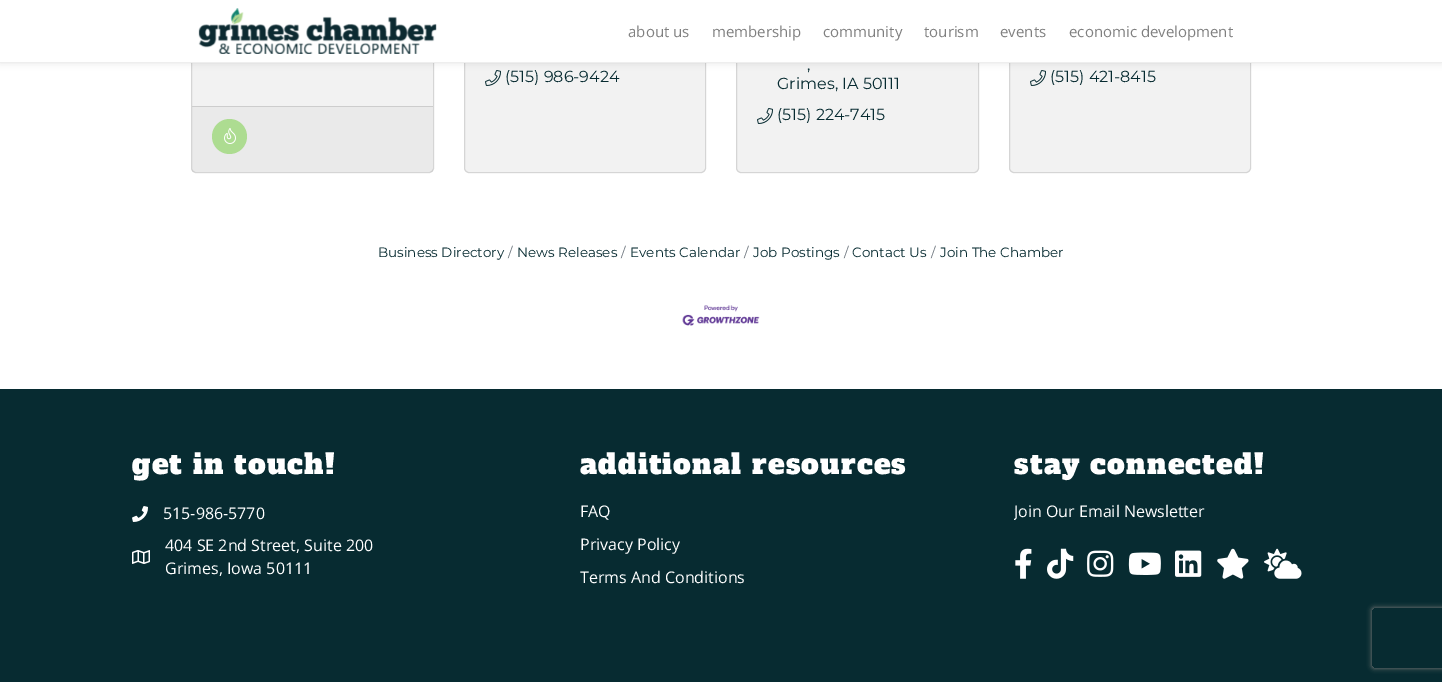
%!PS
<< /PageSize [1442 682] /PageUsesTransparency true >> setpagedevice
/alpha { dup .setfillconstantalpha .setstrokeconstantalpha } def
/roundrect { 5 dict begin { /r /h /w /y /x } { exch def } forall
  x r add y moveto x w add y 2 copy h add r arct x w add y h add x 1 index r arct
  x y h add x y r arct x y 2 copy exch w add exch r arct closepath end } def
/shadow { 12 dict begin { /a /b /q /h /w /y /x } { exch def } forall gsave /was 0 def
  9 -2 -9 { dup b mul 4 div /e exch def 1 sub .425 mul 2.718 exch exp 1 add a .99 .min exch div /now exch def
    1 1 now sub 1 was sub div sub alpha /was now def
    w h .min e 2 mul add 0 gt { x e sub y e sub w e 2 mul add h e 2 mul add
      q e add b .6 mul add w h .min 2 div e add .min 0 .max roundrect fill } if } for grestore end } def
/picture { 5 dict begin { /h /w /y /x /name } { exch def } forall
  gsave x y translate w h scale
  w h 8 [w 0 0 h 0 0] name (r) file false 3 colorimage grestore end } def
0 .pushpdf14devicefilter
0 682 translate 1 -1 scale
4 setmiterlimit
1 setgray
0 0 1442 682 rectfill
0.949 setgray
191 -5 243 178 5 roundrect fill
0.12 alpha
0 setgray
191.5 -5.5 242 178 4.5 roundrect stroke
1 alpha
0.949 setgray
464 -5 242 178 5 roundrect fill
0.12 alpha
0 setgray
464.5 -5.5 241 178 4.5 roundrect stroke
1 alpha
(img3.rgb) 485 70 16 16 picture
0.949 setgray
736 -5 243 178 5 roundrect fill
0.12 alpha
0 setgray
736.5 -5.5 242 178 4.5 roundrect stroke
1 alpha
0.949 setgray
1009 -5 242 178 5 roundrect fill
0.12 alpha
0 setgray
1009.5 -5.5 241 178 4.5 roundrect stroke
1 alpha
(img3.rgb) 1030 70 16 16 picture
0 0 1442 63 0 3.5 0.1 shadow
1 setgray
0 0 1442 62 rectfill
0.933 setgray
0 62 1442 1 rectfill
(img1.rgb) 198 8 239 46 picture
/OpenSans-Regular [15 0 0 -15 0 0] selectfont
0.502 setgray
628 37 moveto (about us) show
712 37 moveto (membership) show
823 37 moveto (community) show
924 37 moveto (tourism) show
1000 37 moveto (events) show
1069 37 moveto (economic development) show
0.03 alpha
0 setgray
192 107 241 65 rectfill
1 alpha
0.804 setgray
192 106 241 1 rectfill
0.678 0.863 0.569 setrgbcolor
newpath 229.5 136.5 17.5 0 360 arc closepath fill
(img2.rgb) 224 128 12 16 picture
/Montserrat-Regular [16 0 0 -16 0 0] selectfont
0.027 0.169 0.192 setrgbcolor
505 82 moveto (\(515\) 986-9424) show
807 70 moveto (,) show
777 89 moveto (Grimes, IA 50111) show
(img3.rgb) 757 108 16 16 picture
777 120 moveto (\(515\) 224-7415) show
1050 82 moveto (\(515\) 421-8415) show
/Montserrat-Regular [13.5 0 0 -13.5 0 0] selectfont
378 257 moveto (Business Directory) show
0.424 0.459 0.49 setrgbcolor
508 257 moveto (/) show
0.027 0.169 0.192 setrgbcolor
517 257 moveto (News Releases) show
0.424 0.459 0.49 setrgbcolor
621 257 moveto (/) show
0.027 0.169 0.192 setrgbcolor
630 257 moveto (Events Calendar) show
0.424 0.459 0.49 setrgbcolor
744 257 moveto (/) show
0.027 0.169 0.192 setrgbcolor
753 257 moveto (Job Postings) show
0.424 0.459 0.49 setrgbcolor
844 257 moveto (/) show
0.027 0.169 0.192 setrgbcolor
852 257 moveto (Contact Us) show
0.424 0.459 0.49 setrgbcolor
931 257 moveto (/) show
0.027 0.169 0.192 setrgbcolor
940 257 moveto (Join The Chamber) show
(img4.rgb) 682 305 78 21 picture
0 389 1442 293 rectfill
/AlfaSlabOne-Regular [28 0 0 -28 0 0] selectfont
1 setgray
132 474 moveto 1.2 0 (get in touch!) ashow
(img5.rgb) 132 506 16 16 picture
/OpenSans-Regular [16 0 0 -16 0 0] selectfont
163 519 moveto (515-986-5770) show
(img6.rgb) 132 550 18 14 picture
165 551 moveto (404 SE 2nd Street, Suite 200) show
165 574 moveto (Grimes, Iowa 50111) show
/AlfaSlabOne-Regular [28 0 0 -28 0 0] selectfont
580 474 moveto 1.2 0 (additional resources) ashow
/OpenSans-Regular [16 0 0 -16 0 0] selectfont
580 517 moveto (FAQ) show
580 550 moveto (Privacy Policy) show
580 583 moveto (Terms And Conditions) show
/AlfaSlabOne-Regular [28 0 0 -28 0 0] selectfont
1014 474 moveto 1.2 0 (stay connected!) ashow
gsave
1014 500 191 23 rectclip
/OpenSans-Regular [16 0 0 -16 0 0] selectfont
1014 517 moveto (Join Our Email Newsletter) show
grestore
(img7.rgb) 1015 548 17 31 picture
(img8.rgb) 1047 548 27 31 picture
(img9.rgb) 1087 550 27 27 picture
(img10.rgb) 1128 552 33 23 picture
(img11.rgb) 1175 550 27 27 picture
(img12.rgb) 1217 548 32 31 picture
(img13.rgb) 1264 548 38 31 picture
gsave
newpath 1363 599 moveto 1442 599 lineto 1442 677 lineto 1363 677 lineto closepath 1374 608 moveto 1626 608 lineto 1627 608 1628 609 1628 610 curveto 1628 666 lineto 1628 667 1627 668 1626 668 curveto 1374 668 lineto 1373 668 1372 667 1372 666 curveto 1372 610 lineto 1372 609 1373 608 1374 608 curveto closepath eoclip newpath
0.502 setgray
1372 608 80 60 2 2.5 1 shadow
grestore
.poppdf14devicefilter showpage
